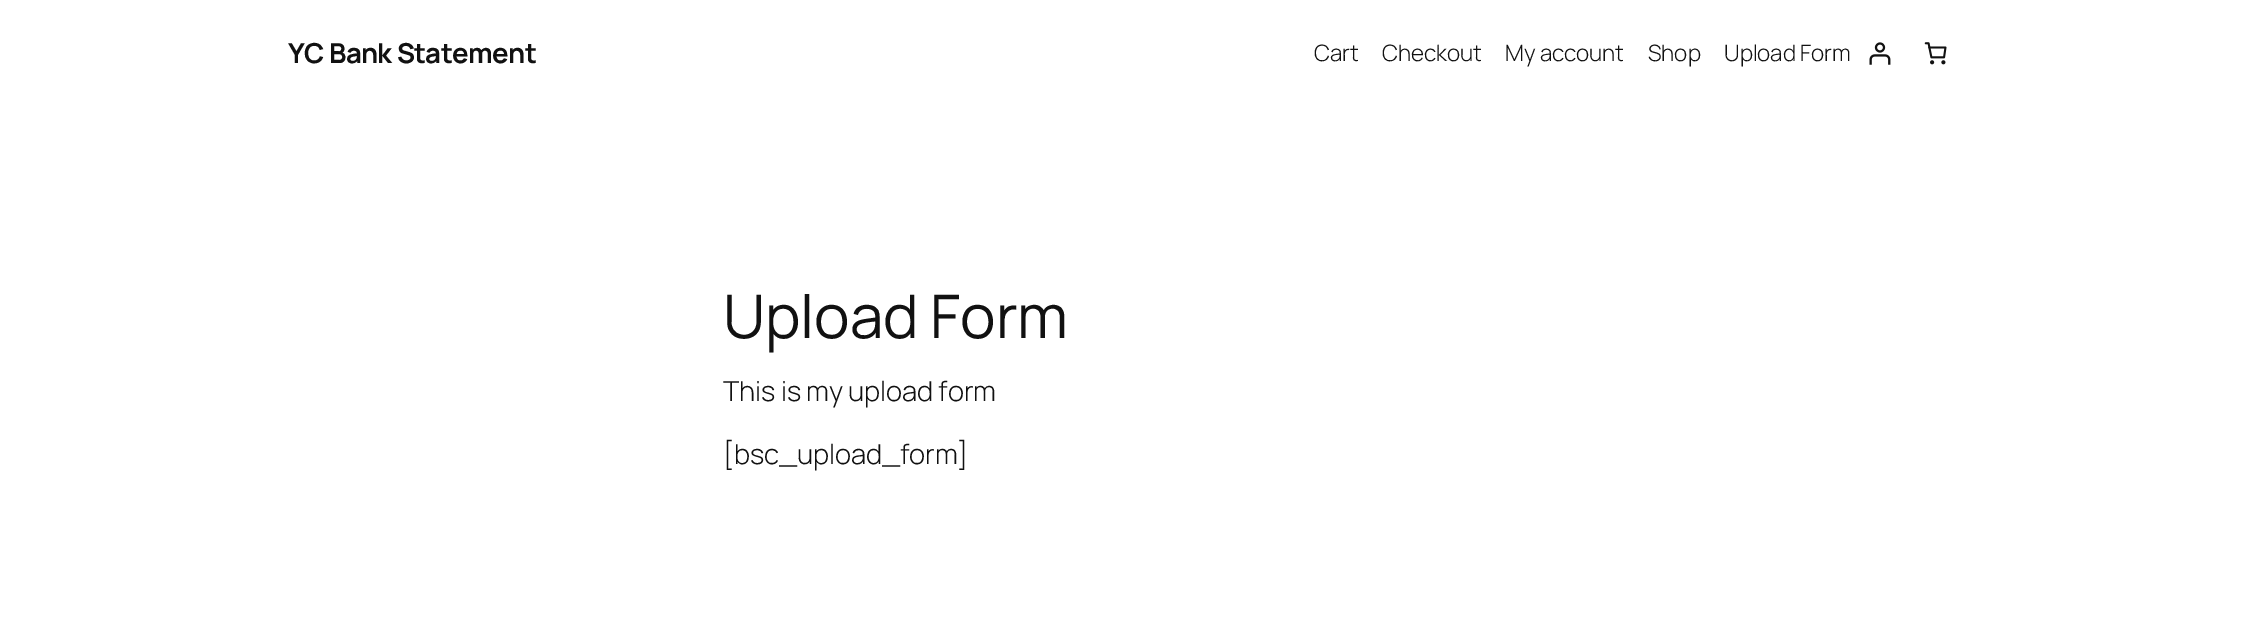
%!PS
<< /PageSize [2251 637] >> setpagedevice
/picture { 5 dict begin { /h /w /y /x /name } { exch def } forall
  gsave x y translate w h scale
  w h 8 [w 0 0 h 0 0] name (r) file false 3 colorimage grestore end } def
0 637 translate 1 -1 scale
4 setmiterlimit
1 setgray
0 0 2251 637 rectfill
/Manrope-Bold [27.5 0 0 -27.5 0 0] selectfont
0.067 setgray
288 63 moveto -0.6 0 (YC Bank Statement) ashow
/Manrope-Light [22.5 0 0 -22.5 0 0] selectfont
1314 61 moveto -0.1 0 (Cart) ashow
1382 61 moveto -0.1 0 (Checkout) ashow
1505 61 moveto -0.1 0 (My account) ashow
1648 61 moveto -0.1 0 (Shop) ashow
1724 61 moveto -0.1 0 (Upload Form) ashow
(img1.rgb) 1869 42 22 23 picture
(img2.rgb) 1924 42 23 23 picture
/Manrope-Regular [60 0 0 -60 0 0] selectfont
723 338 moveto -0.1 0 (Upload Form) ashow
/Manrope-Light [27.5 0 0 -27.5 0 0] selectfont
723 401 moveto -0.1 0 (This is my upload form) ashow
723 464 moveto -0.1 0 ([bsc_upload_form]) ashow
showpage
